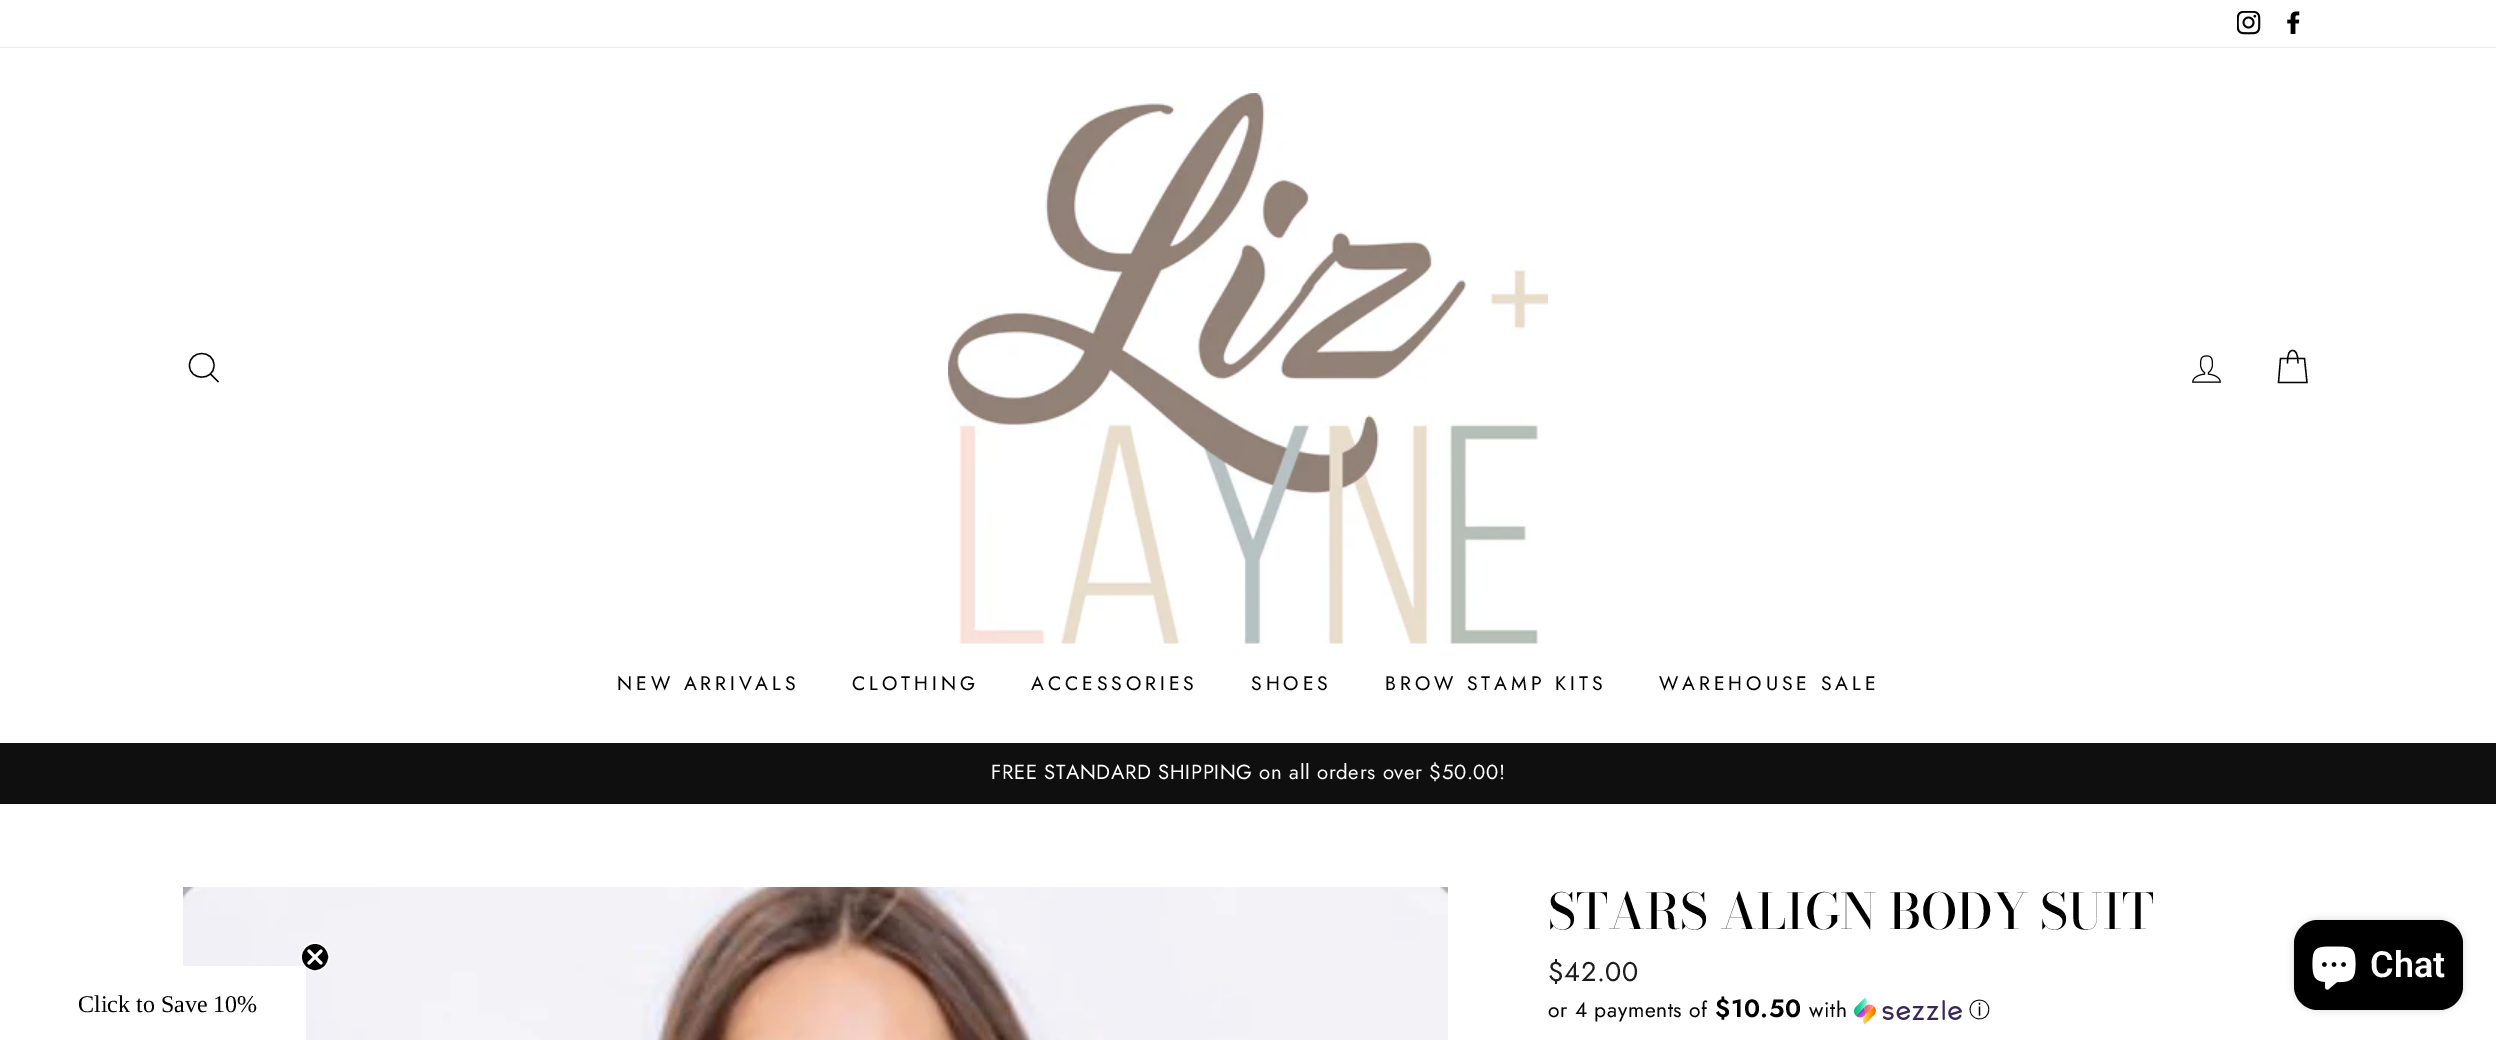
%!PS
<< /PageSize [2496 1040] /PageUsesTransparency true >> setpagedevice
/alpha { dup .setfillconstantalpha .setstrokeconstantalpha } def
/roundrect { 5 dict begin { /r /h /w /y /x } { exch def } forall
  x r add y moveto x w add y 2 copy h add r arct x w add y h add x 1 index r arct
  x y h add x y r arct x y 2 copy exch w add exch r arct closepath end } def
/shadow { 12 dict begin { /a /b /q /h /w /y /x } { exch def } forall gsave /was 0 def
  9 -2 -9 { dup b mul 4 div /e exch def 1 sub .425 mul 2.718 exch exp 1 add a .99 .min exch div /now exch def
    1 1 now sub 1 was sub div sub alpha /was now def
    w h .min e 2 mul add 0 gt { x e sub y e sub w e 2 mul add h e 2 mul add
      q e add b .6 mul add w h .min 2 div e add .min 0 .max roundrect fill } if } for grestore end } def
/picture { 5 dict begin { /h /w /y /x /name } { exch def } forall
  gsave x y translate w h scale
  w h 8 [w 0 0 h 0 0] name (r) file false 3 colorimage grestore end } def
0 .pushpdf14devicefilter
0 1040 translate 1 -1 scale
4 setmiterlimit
1 setgray
0 0 2496 1040 rectfill
(img1.rgb) 2237 11 24 24 picture
(img2.rgb) 2287 11 13 23 picture
0 setgray
0 48 2496 695 0 1 0.2 shadow
1 setgray
0 48 2496 695 rectfill
0 setgray
1.3 setlinewidth
newpath 214 365.5 moveto 214 381 189.5 381 189.5 365.5 curveto 189.5 349.5 214 349.5 214 365.5 curveto closepath 218.5 382 moveto 210.5 374 lineto stroke
(img3.rgb) 948 93 600 551 picture
(img4.rgb) 2192 355 29 28 picture
newpath 2287.5 363.5 moveto 2287.5 353 2289.5 350.5 2292.5 350.5 curveto 2295.5 350.5 2298 353 2298 363.5 curveto 2280.5 358.5 moveto 2304.5 358.5 lineto 2307 382.5 lineto 2278.5 382.5 lineto closepath stroke
/Jost-Regular [19.5 0 0 -19.5 0 0] selectfont
617 690 moveto 3.9 0 (NEW ARRIVALS) ashow
852 690 moveto 3.9 0 (CLOTHING) ashow
1031 690 moveto 3.9 0 (ACCESSORIES) ashow
1251 690 moveto 3.9 0 (SHOES) ashow
1385 690 moveto 3.9 0 (BROW STAMP KITS) ashow
1659 690 moveto 3.9 0 (WAREHOUSE SALE) ashow
0.059 setgray
0 743 2496 61 rectfill
/Jost-Regular [20.4 0 0 -20.4 0 0] selectfont
1 setgray
991 779 moveto 0.6 0 (FREE STANDARD SHIPPING on all orders over $50.00!) ashow
(img5.rgb) 183 887 1265 153 picture
/BodoniModa-Medium [49 0 0 -49 0 0] selectfont
0 setgray
1548 929 moveto (STARS ALIGN BODY SUIT) show
/Jost-Regular [27 0 0 -27 0 0] selectfont
0.11 0.114 0.114 setrgbcolor
1548 981 moveto 0.6 0 ($42.00) ashow
/Jost-Regular [21 0 0 -21 0 0] selectfont
0 setgray
1548 1017 moveto 0.6 0 (or 4 payments of) ashow
/Jost-SemiBold [25 0 0 -25 0 0] selectfont
1715 1017 moveto 0.6 0 ($10.50) ashow
/Jost-Regular [21 0 0 -21 0 0] selectfont
1809 1017 moveto 0.6 0 (with) ashow
(img6.rgb) 1854 998 108 27 picture
/WenQuanYiZenHei-Medium [21 0 0 -21 0 0] selectfont
1969 1017 moveto 0.6 0 (ⓘ) ashow
2294 920 169 90 24 4 0.15 shadow
2294 920 169 90 24 roundrect fill
(img7.rgb) 2312 946 44 44 picture
/Roboto-SemiBold [36 0 0 -36 0 0] selectfont
1 setgray
2370 977 moveto (Chat) show
183 966 123 74 rectfill
0 setgray
newpath 315 957 14 0 360 arc closepath gsave fill grestore
1 setgray
1.5 setlinewidth
stroke
3 setlinewidth
1 setlinecap
1 setlinejoin
newpath 309 951 moveto 321 963 lineto 309 963 moveto 321 951 lineto closepath stroke
/LiberationSerif-Regular [24 0 0 -24 0 0] selectfont
0 setgray
78 1012 moveto (Click to Save 10%) show
.poppdf14devicefilter showpage
